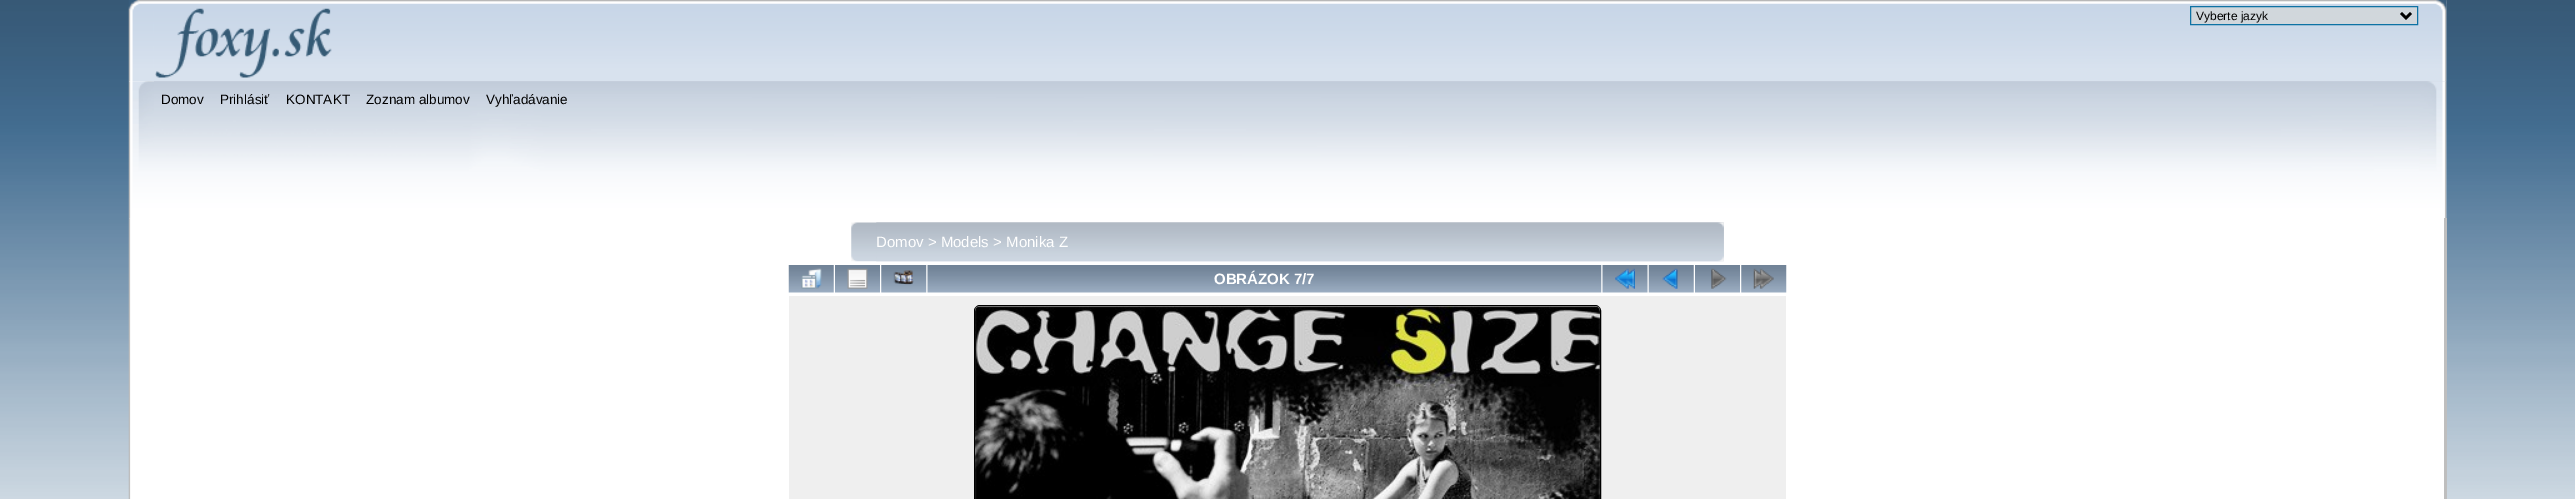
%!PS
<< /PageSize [2575 499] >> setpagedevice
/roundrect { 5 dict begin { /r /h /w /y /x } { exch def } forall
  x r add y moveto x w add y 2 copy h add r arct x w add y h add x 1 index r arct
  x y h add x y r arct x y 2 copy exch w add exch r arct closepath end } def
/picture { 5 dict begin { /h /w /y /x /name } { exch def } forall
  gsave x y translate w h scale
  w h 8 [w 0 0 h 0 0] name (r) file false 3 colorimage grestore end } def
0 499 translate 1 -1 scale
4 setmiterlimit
1 setgray
0 0 2575 499 rectfill
(img1.rgb) 0 0 2575 499 picture
(img2.rgb) 128 0 2319 82 picture
(img3.rgb) 153 0 2294 82 picture
(img4.rgb) 155 8 177 70 picture
0.82 0.843 0.863 setrgbcolor
newpath 2190.5 6.5 moveto 2417.5 6.5 lineto 2417.5 24.5 lineto 2190.5 24.5 lineto closepath gsave fill grestore
0.055 0.447 0.643 setrgbcolor
stroke
0 setgray
2.5 setlinewidth
newpath 2401 13 moveto 2406 18 lineto 2411 13 lineto stroke
/LiberationSans-Regular [12 0 0 -12 0 0] selectfont
2196 20 moveto (Vyberte jazyk) show
(img5.rgb) 128 81 2319 138 picture
(img6.rgb) 154 81 2293 138 picture
/LiberationSans-Regular [13.5 0 0 -13.5 0 0] selectfont
161 104 moveto (Domov) show
220 104 moveto (Prihlásiť) show
286 104 moveto (KONTAKT) show
366 104 moveto (Zoznam albumov) show
486 104 moveto (Vyhľadávanie) show
(img7.rgb) 128 218 2316 281 picture
0.745 setgray
2444 218 3 281 rectfill
(img8.rgb) 851 222 873 40 picture
(img9.rgb) 876 222 848 40 picture
/LiberationSans-Regular [15 0 0 -15 0 0] selectfont
1 setgray
876 247 moveto (Domov > Models > Monika Z) show
(img10.rgb) 788 265 46 28 picture
(img11.rgb) 801 268 21 21 picture
(img12.rgb) 835 265 45 28 picture
(img13.rgb) 847 268 21 21 picture
(img14.rgb) 881 265 46 28 picture
(img15.rgb) 893 270 21 15 picture
(img16.rgb) 927 265 675 28 picture
/LiberationSans-Bold [15 0 0 -15 0 0] selectfont
1214 284 moveto (OBRÁZOK 7/7) show
(img17.rgb) 1602 265 46 28 picture
(img18.rgb) 1615 268 20 21 picture
(img10.rgb) 1648 265 46 28 picture
(img19.rgb) 1662 268 16 21 picture
(img12.rgb) 1695 265 45 28 picture
(img20.rgb) 1711 268 16 21 picture
(img14.rgb) 1741 265 46 28 picture
(img21.rgb) 1753 268 21 21 picture
0.937 setgray
789 296 997 203 rectfill
0 setgray
1 setlinewidth
974.5 305.5 626 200 5.5 roundrect stroke
(img22.rgb) 975 306 625 193 picture
showpage
